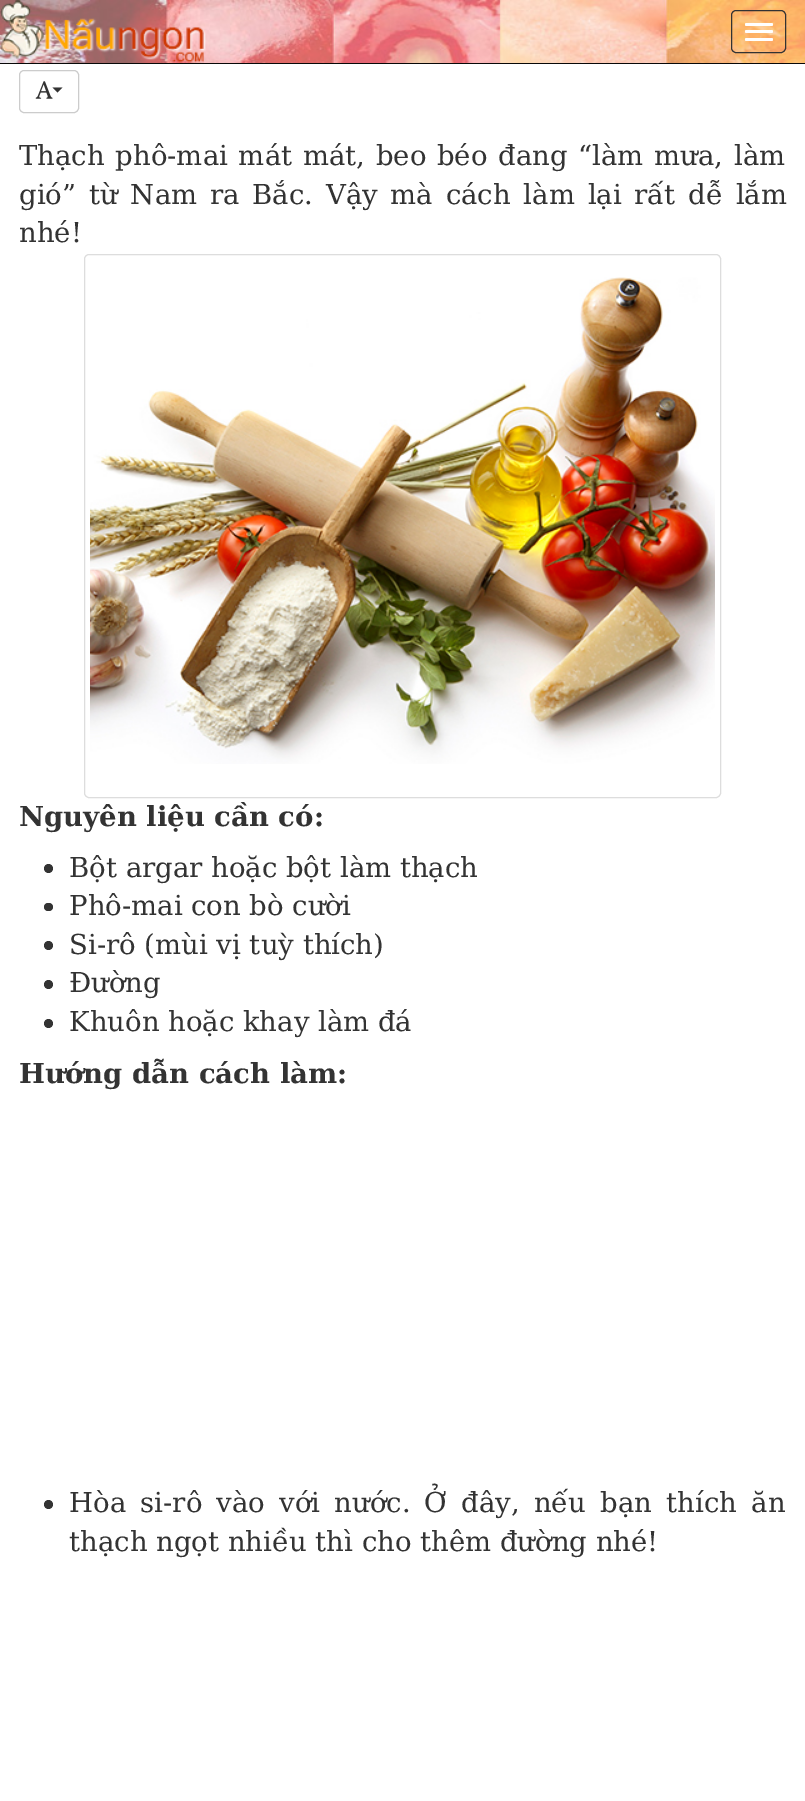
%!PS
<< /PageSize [805 1801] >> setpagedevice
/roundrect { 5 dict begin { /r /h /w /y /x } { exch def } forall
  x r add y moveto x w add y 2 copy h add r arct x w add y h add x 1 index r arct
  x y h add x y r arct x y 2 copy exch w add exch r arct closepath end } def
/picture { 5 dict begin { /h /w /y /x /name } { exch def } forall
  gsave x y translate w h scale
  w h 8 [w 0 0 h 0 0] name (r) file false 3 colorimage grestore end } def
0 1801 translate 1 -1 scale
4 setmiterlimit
1 setgray
0 0 805 1801 rectfill
(img1.rgb) 0 0 805 63 picture
0.031 setgray
0 63 805 1 rectfill
(img2.rgb) 0 0 206 63 picture
0.2 setgray
731.5 10.5 54 42 4.5 roundrect stroke
1 setgray
745 23 28 3 1.5 roundrect fill
745 30 28 3 1.5 roundrect fill
745 38 28 3 1.5 roundrect fill
0.8 setgray
19.5 70.5 59 42 4.5 roundrect stroke
(img3.rgb) 35 81 18 18 picture
0.2 setgray
newpath 52.5 87.5 moveto 62.5 87.5 lineto 57.5 92.5 lineto closepath fill
/DejaVuSerif-Regular [27.5 0 0 -27.5 0 0] selectfont
19 165 moveto 2 0 32 (Thạch phô-mai mát mát, beo béo đang “làm mưa, làm) widthshow
19 204 moveto 4.1 0 32 (gió” từ Nam ra Bắc. Vậy mà cách làm lại rất dễ lắm) widthshow
19 242 moveto (nhé!) show
0.867 setgray
84.5 254.5 636 543 4.5 roundrect stroke
(img4.rgb) 90 277 625 487 picture
/DejaVuSerif-Bold [27.5 0 0 -27.5 0 0] selectfont
0.2 setgray
19 826 moveto (Nguyên liệu cần có:) show
newpath 48.5 868.5 4.5 0 360 arc closepath fill
/DejaVuSerif-Regular [27.5 0 0 -27.5 0 0] selectfont
69 877 moveto (Bột argar hoặc bột làm thạch) show
44 903 9 8 4 roundrect fill
69 915 moveto (Phô-mai con bò cười) show
newpath 48.5 945.5 4.5 0 360 arc closepath fill
69 954 moveto (Si-rô \(mùi vị tuỳ thích\)) show
newpath 48.5 984.5 4.5 0 360 arc closepath fill
69 992 moveto (Đường) show
newpath 48.5 1023.5 4.5 0 360 arc closepath fill
69 1031 moveto (Khuôn hoặc khay làm đá) show
/DejaVuSerif-Bold [27.5 0 0 -27.5 0 0] selectfont
19 1083 moveto (Hướng dẫn cách làm:) show
newpath 48.5 1504.5 4.5 0 360 arc closepath fill
/DejaVuSerif-Regular [27.5 0 0 -27.5 0 0] selectfont
69 1512 moveto 5.5 0 32 (Hòa si-rô vào với nước. Ở đây, nếu bạn thích ăn) widthshow
69 1551 moveto (thạch ngọt nhiều thì cho thêm đường nhé!) show
showpage
